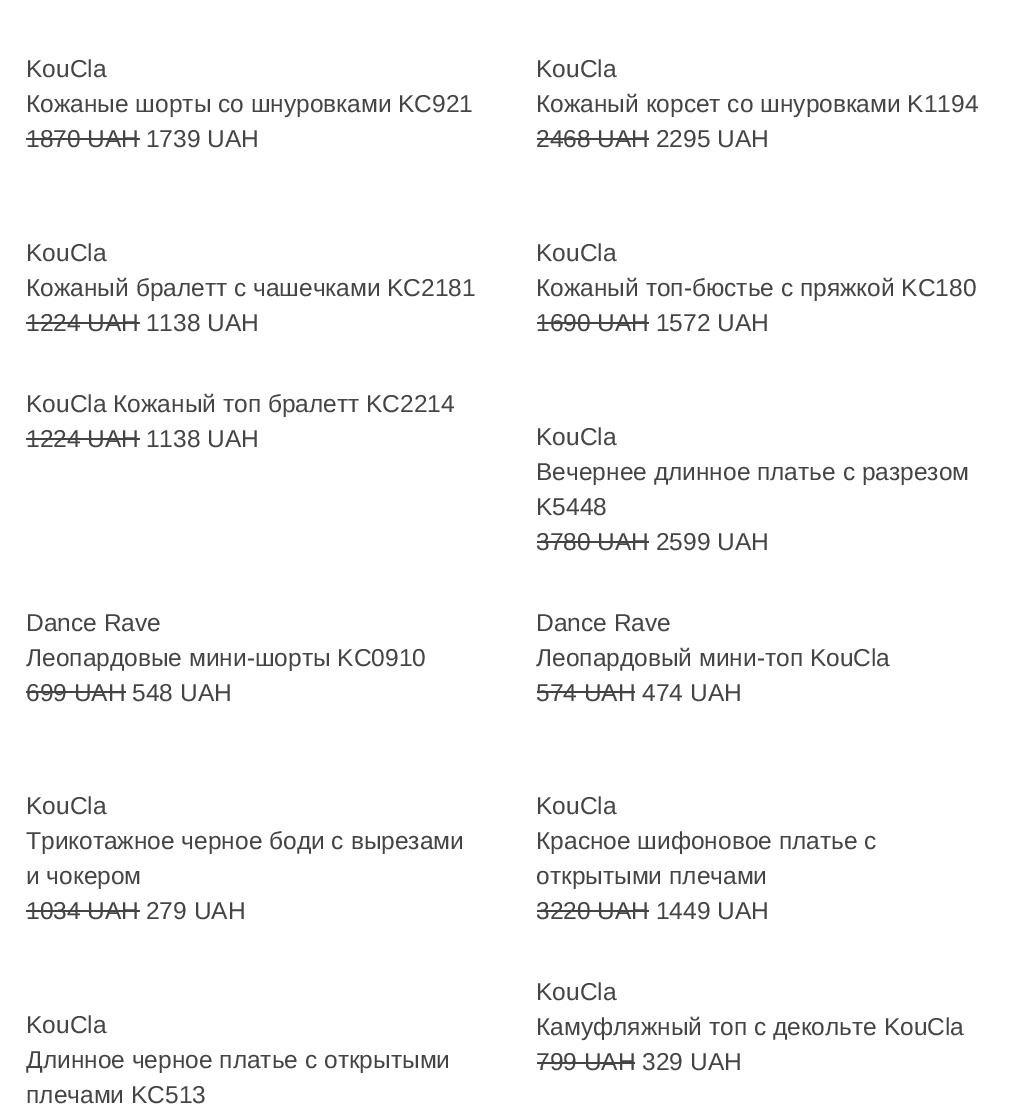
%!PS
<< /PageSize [1019 1115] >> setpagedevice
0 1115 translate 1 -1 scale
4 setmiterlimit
1 setgray
0 0 1019 1115 rectfill
/LiberationSans-Regular [24.5 0 0 -24.5 0 0] selectfont
0.267 setgray
26 77 moveto (KouCla) show
26 112 moveto (Кожаные шорты со шнуровками KC921) show
26 147 moveto (1870 UAH 1739 UAH) show
26 138 114 2 rectfill
536 77 moveto (KouCla) show
536 112 moveto (Кожаный корсет со шнуровками K1194) show
536 147 moveto (2468 UAH 2295 UAH) show
537 138 112 2 rectfill
26 261 moveto (KouCla) show
26 296 moveto (Кожаный бралетт с чашечками KC2181) show
26 331 moveto (1224 UAH 1138 UAH) show
26 322 114 2 rectfill
536 261 moveto (KouCla) show
536 296 moveto (Кожаный топ-бюстье с пряжкой KC180) show
536 331 moveto (1690 UAH 1572 UAH) show
537 322 112 2 rectfill
26 412 moveto (KouCla Кожаный топ бралетт KC2214) show
26 447 moveto (1224 UAH 1138 UAH) show
26 438 114 2 rectfill
536 445 moveto (KouCla) show
536 480 moveto (Вечернее длинное платье с разрезом) show
536 515 moveto (K5448) show
536 550 moveto (3780 UAH 2599 UAH) show
537 541 112 2 rectfill
26 631 moveto (Dance Rave) show
26 666 moveto (Леопардовые мини-шорты KC0910) show
26 701 moveto (699 UAH 548 UAH) show
26 691 100 2 rectfill
536 631 moveto (Dance Rave) show
536 666 moveto (Леопардовый мини-топ KouCla) show
536 701 moveto (574 UAH 474 UAH) show
537 691 98 2 rectfill
26 814 moveto (KouCla) show
26 849 moveto (Трикотажное черное боди с вырезами) show
26 884 moveto (и чокером) show
26 919 moveto (1034 UAH 279 UAH) show
26 910 114 2 rectfill
536 814 moveto (KouCla) show
536 849 moveto (Красное шифоновое платье с) show
536 884 moveto (открытыми плечами) show
536 919 moveto (3220 UAH 1449 UAH) show
537 910 112 2 rectfill
26 1033 moveto (KouCla) show
26 1068 moveto (Длинное черное платье с открытыми) show
26 1103 moveto (плечами KC513) show
536 1000 moveto (KouCla) show
536 1035 moveto (Камуфляжный топ с декольте KouCla) show
536 1070 moveto (799 UAH 329 UAH) show
537 1062 98 2 rectfill
showpage
